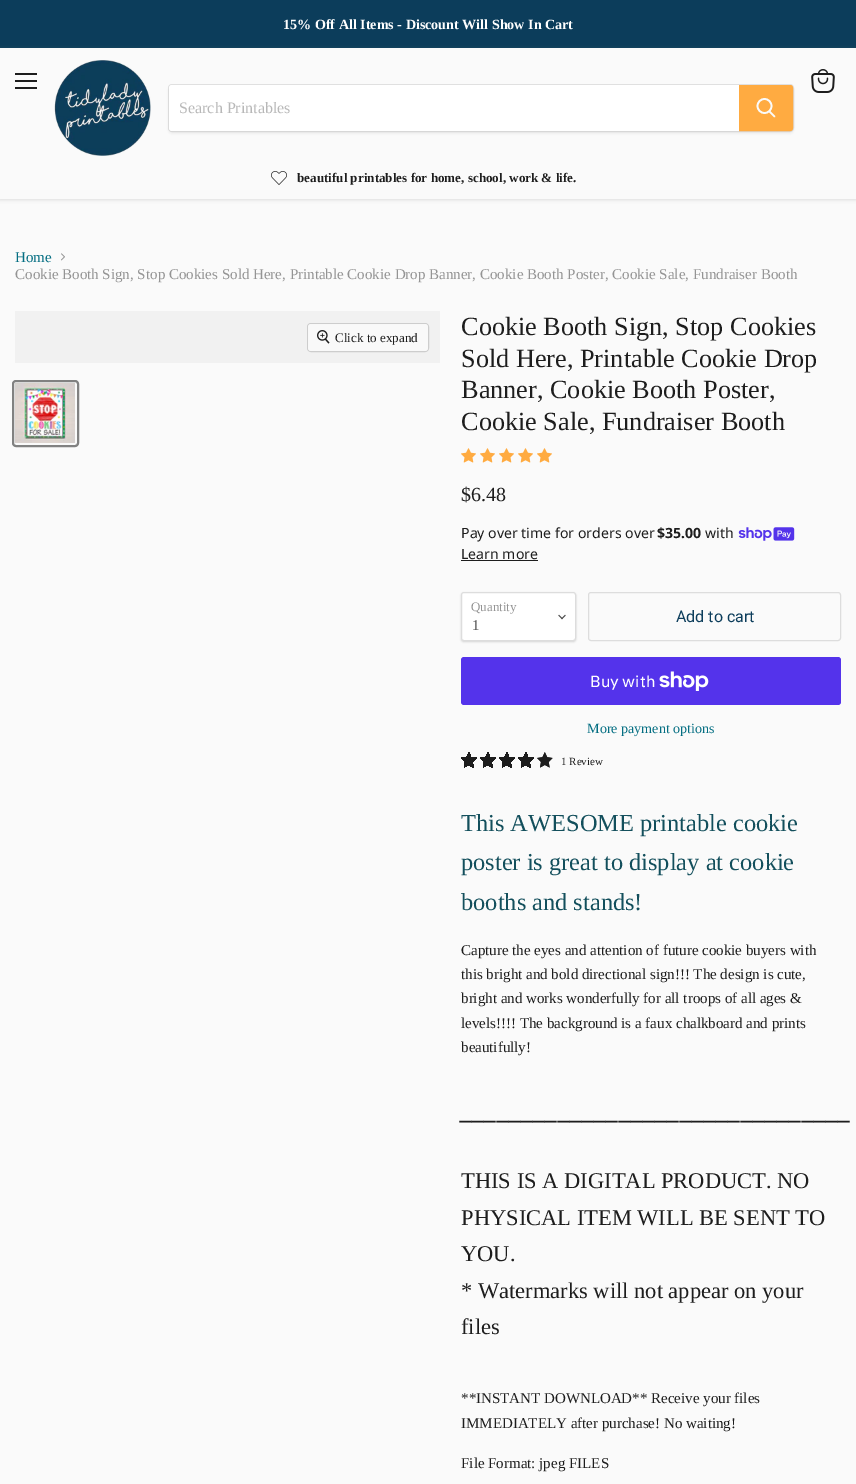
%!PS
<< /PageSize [856 1484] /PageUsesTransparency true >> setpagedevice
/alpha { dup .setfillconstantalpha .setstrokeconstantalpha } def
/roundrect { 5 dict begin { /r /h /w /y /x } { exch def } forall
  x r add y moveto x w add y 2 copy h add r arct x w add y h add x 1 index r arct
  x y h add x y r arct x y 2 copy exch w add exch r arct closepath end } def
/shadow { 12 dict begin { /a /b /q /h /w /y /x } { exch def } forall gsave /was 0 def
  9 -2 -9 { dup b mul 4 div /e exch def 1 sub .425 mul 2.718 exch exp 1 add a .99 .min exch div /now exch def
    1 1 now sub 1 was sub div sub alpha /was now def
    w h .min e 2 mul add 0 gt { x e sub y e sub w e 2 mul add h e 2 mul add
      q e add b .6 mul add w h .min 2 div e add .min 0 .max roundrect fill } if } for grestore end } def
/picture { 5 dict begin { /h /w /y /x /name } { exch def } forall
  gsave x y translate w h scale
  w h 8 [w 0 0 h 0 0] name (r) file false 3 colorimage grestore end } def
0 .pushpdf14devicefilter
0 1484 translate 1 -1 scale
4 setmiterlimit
0.98 setgray
0 0 856 1484 rectfill
0.047 0.239 0.357 setrgbcolor
0 0 856 48 rectfill
/LiberationSerif-Bold [14.1 0 0 -14.1 0 0] selectfont
1 setgray
283 29 moveto (15% Off All Items - Discount Will Show In Cart) show
gsave
newpath 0 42 moveto 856 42 lineto 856 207 lineto 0 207 lineto closepath 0 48 moveto 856 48 lineto 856 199 lineto 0 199 lineto closepath eoclip newpath
0.49 setgray
0 49 856 151 0 2 0.25 shadow
grestore
0.114 setgray
15 73 22 2 rectfill
15 80 22 2 rectfill
15 87 22 2 rectfill
(img1.rgb) 811 69 24 24 picture
(img2.rgb) 54 60 97 96 picture
0.49 setgray
168 86 626 48 4 1.5 0.11 shadow
0.2 alpha
168.5 84.5 625 47 3.5 roundrect stroke
1 alpha
1 setgray
newpath 172 85 moveto 739 85 lineto 739 131 lineto 172 131 lineto 170.5 131 169 129.5 169 128 curveto 169 88 lineto 169 86.5 170.5 85 172 85 curveto closepath fill
/LiberationSerif-Regular [16 0 0 -16 0 0] selectfont
0.722 setgray
179 113 moveto (Search Printables) show
1 0.671 0.255 setrgbcolor
newpath 739.5 85.5 moveto 790 85.5 lineto 791.5 85.5 792.5 86.5 792.5 88 curveto 792.5 128 lineto 792.5 129.5 791.5 130.5 790 130.5 curveto 739.5 130.5 lineto closepath gsave fill grestore
stroke
0.98 setgray
1.7 setlinewidth
1 setlinecap
newpath 774.5 116.5 moveto 769.5 111.5 lineto stroke
0 setlinecap
newpath 764.5 106 7 0 360 arc closepath stroke
(img3.rgb) 271 171 16 14 picture
/LiberationSerif-Bold [13.1 0 0 -13.1 0 0] selectfont
0.114 setgray
297 182 moveto (beautiful printables for home, school, work & life.) show
/LiberationSerif-Regular [15 0 0 -15 0 0] selectfont
0.016 0.431 0.51 setrgbcolor
15 262 moveto (Home) show
(img4.rgb) 61 253 4 8 picture
0.58 setgray
15 279 moveto (Cookie Booth Sign, Stop Cookies Sold Here, Printable Cookie Drop Banner, Cookie Booth Poster, Cookie Sale, Fundraiser Booth) show
0.945 setgray
15 311 425 52 rectfill
0.804 setgray
1 setlinewidth
307.5 323.5 121 28 3.5 roundrect stroke
0.9 alpha
0.98 setgray
308 324 120 27 3 roundrect fill
1 alpha
(img5.rgb) 317 330 13 14 picture
/LiberationSerif-Regular [13.1 0 0 -13.1 0 0] selectfont
0.114 setgray
335 342 moveto (Click to expand) show
0.506 setgray
2 setlinewidth
13 381 65 65 3 roundrect stroke
(img6.rgb) 15 383 60 60 picture
/LiberationSerif-Regular [26.25 0 0 -26.25 0 0] selectfont
0.114 setgray
461 335 moveto (Cookie Booth Sign, Stop Cookies) show
461 367 moveto (Sold Here, Printable Cookie Drop) show
461 398 moveto (Banner, Cookie Booth Poster,) show
461 430 moveto (Cookie Sale, Fundraiser Booth) show
(img7.rgb) 461 448 15 15 picture
(img7.rgb) 480 448 15 15 picture
(img7.rgb) 499 448 15 15 picture
(img7.rgb) 518 448 15 15 picture
(img7.rgb) 537 448 15 15 picture
/LiberationSerif-Regular [20 0 0 -20 0 0] selectfont
461 501 moveto ($6.48) show
/NotoSans-Regular [14.1 0 0 -14.1 0 0] selectfont
461 538 moveto (Pay over time for orders over) show
/NotoSans-Bold [14.1 0 0 -14.1 0 0] selectfont
657 538 moveto ($35.00) show
/NotoSans-Regular [14.1 0 0 -14.1 0 0] selectfont
705 538 moveto (with) show
(img8.rgb) 738 527 57 14 picture
461 559 moveto (Learn more) show
461 560 77 1 rectfill
0 setgray
461 593 115 49 3 1 0.15 shadow
1 setgray
461.5 592.5 114 48 2.5 roundrect gsave fill grestore
0.867 setgray
1 setlinewidth
stroke
/LiberationSerif-Regular [13 0 0 -13 0 0] selectfont
0.58 setgray
471 611 moveto (Quantity) show
(img9.rgb) 558 614 8 6 picture
/LiberationSerif-Regular [15 0 0 -15 0 0] selectfont
0.302 setgray
472 630 moveto (1) show
0.867 setgray
588.5 592.5 252 48 2.5 roundrect stroke
/Roboto-Regular [16 0 0 -16 0 0] selectfont
0.047 0.239 0.357 setrgbcolor
676 622 moveto (Add to cart) show
0.329 0.2 0.922 setrgbcolor
461 657 380 48 3 roundrect fill
/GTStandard-Regular [16 0 0 -16 0 0] selectfont
1 setgray
590 687 moveto (Buy with) show
(img10.rgb) 659 671 50 20 picture
/LiberationSerif-Regular [14.1 0 0 -14.1 0 0] selectfont
0.016 0.431 0.51 setrgbcolor
587 733 moveto (More payment options) show
0.114 setgray
newpath 469 752 moveto 466.5 757 lineto 461 758 lineto 465 762 lineto 464 767.5 lineto 469 765 lineto 473.5 767.5 lineto 472.5 762 lineto 476.5 758 lineto 471 757 lineto closepath fill
gsave
newpath 469 752 moveto 471 757 lineto 476.5 758 lineto 472.5 762 lineto 473.5 767.5 lineto 469 765 lineto 464 767.5 lineto 465 762 lineto 461 758 lineto 466.5 757 lineto closepath clip newpath
2.2 setlinewidth
1 setlinecap
1 setlinejoin
newpath 469 752 moveto 471 757 lineto 476.5 758 lineto 472.5 762 lineto 473.5 767.5 lineto 469 765 lineto 464 767.5 lineto 465 762 lineto 461 758 lineto 466.5 757 lineto closepath stroke
grestore
newpath 488 752 moveto 485.5 757 lineto 480 758 lineto 484 762 lineto 483 767.5 lineto 488 765 lineto 492.5 767.5 lineto 491.5 762 lineto 495.5 758 lineto 490 757 lineto closepath fill
gsave
newpath 488 752 moveto 490 757 lineto 495.5 758 lineto 491.5 762 lineto 492.5 767.5 lineto 488 765 lineto 483 767.5 lineto 484 762 lineto 480 758 lineto 485.5 757 lineto closepath clip newpath
2.2 setlinewidth
1 setlinecap
1 setlinejoin
newpath 488 752 moveto 490 757 lineto 495.5 758 lineto 491.5 762 lineto 492.5 767.5 lineto 488 765 lineto 483 767.5 lineto 484 762 lineto 480 758 lineto 485.5 757 lineto closepath stroke
grestore
newpath 507 752 moveto 504.5 757 lineto 499 758 lineto 503 762 lineto 502 767.5 lineto 507 765 lineto 511.5 767.5 lineto 510.5 762 lineto 514.5 758 lineto 509 757 lineto closepath fill
gsave
newpath 507 752 moveto 509 757 lineto 514.5 758 lineto 510.5 762 lineto 511.5 767.5 lineto 507 765 lineto 502 767.5 lineto 503 762 lineto 499 758 lineto 504.5 757 lineto closepath clip newpath
2.2 setlinewidth
1 setlinecap
1 setlinejoin
newpath 507 752 moveto 509 757 lineto 514.5 758 lineto 510.5 762 lineto 511.5 767.5 lineto 507 765 lineto 502 767.5 lineto 503 762 lineto 499 758 lineto 504.5 757 lineto closepath stroke
grestore
newpath 526 752 moveto 523.5 757 lineto 518 758 lineto 522 762 lineto 521 767.5 lineto 526 765 lineto 530.5 767.5 lineto 529.5 762 lineto 533.5 758 lineto 528 757 lineto closepath fill
gsave
newpath 526 752 moveto 528 757 lineto 533.5 758 lineto 529.5 762 lineto 530.5 767.5 lineto 526 765 lineto 521 767.5 lineto 522 762 lineto 518 758 lineto 523.5 757 lineto closepath clip newpath
2.2 setlinewidth
1 setlinecap
1 setlinejoin
newpath 526 752 moveto 528 757 lineto 533.5 758 lineto 529.5 762 lineto 530.5 767.5 lineto 526 765 lineto 521 767.5 lineto 522 762 lineto 518 758 lineto 523.5 757 lineto closepath stroke
grestore
(img11.rgb) 537 752 16 16 picture
/LiberationSerif-Regular [11 0 0 -11 0 0] selectfont
561 765 moveto (1 Review) show
/LiberationSerif-Regular [24.4 0 0 -24.4 0 0] selectfont
0.075 0.31 0.361 setrgbcolor
461 831 moveto (This AWESOME printable cookie) show
461 870 moveto (poster is great to display at cookie) show
461 910 moveto (booths and stands!) show
/LiberationSerif-Regular [15 0 0 -15 0 0] selectfont
0.114 setgray
461 955 moveto (Capture the eyes and attention of future cookie buyers with) show
461 979 moveto (this bright and bold directional sign!!! The design is cute,) show
461 1003 moveto (bright and works wonderfully for all troops of all ages &) show
461 1028 moveto (levels!!!! The background is a faux chalkboard and prints) show
461 1052 moveto (beautifully!) show
/LiberationSerif-BoldItalic [24.4 0 0 -24.4 0 0] selectfont
461 1119 moveto (________________________________) show
/LiberationSerif-Regular [22.5 0 0 -22.5 0 0] selectfont
461 1188 moveto (THIS IS A DIGITAL PRODUCT. NO) show
461 1225 moveto (PHYSICAL ITEM WILL BE SENT TO) show
461 1261 moveto (YOU.) show
461 1298 moveto (* Watermarks will not appear on your) show
461 1334 moveto (files) show
/LiberationSerif-Regular [15 0 0 -15 0 0] selectfont
461 1403 moveto (**INSTANT DOWNLOAD** Receive your files) show
461 1428 moveto (IMMEDIATELY after purchase! No waiting!) show
461 1468 moveto (File Format: jpeg FILES) show
.poppdf14devicefilter showpage
